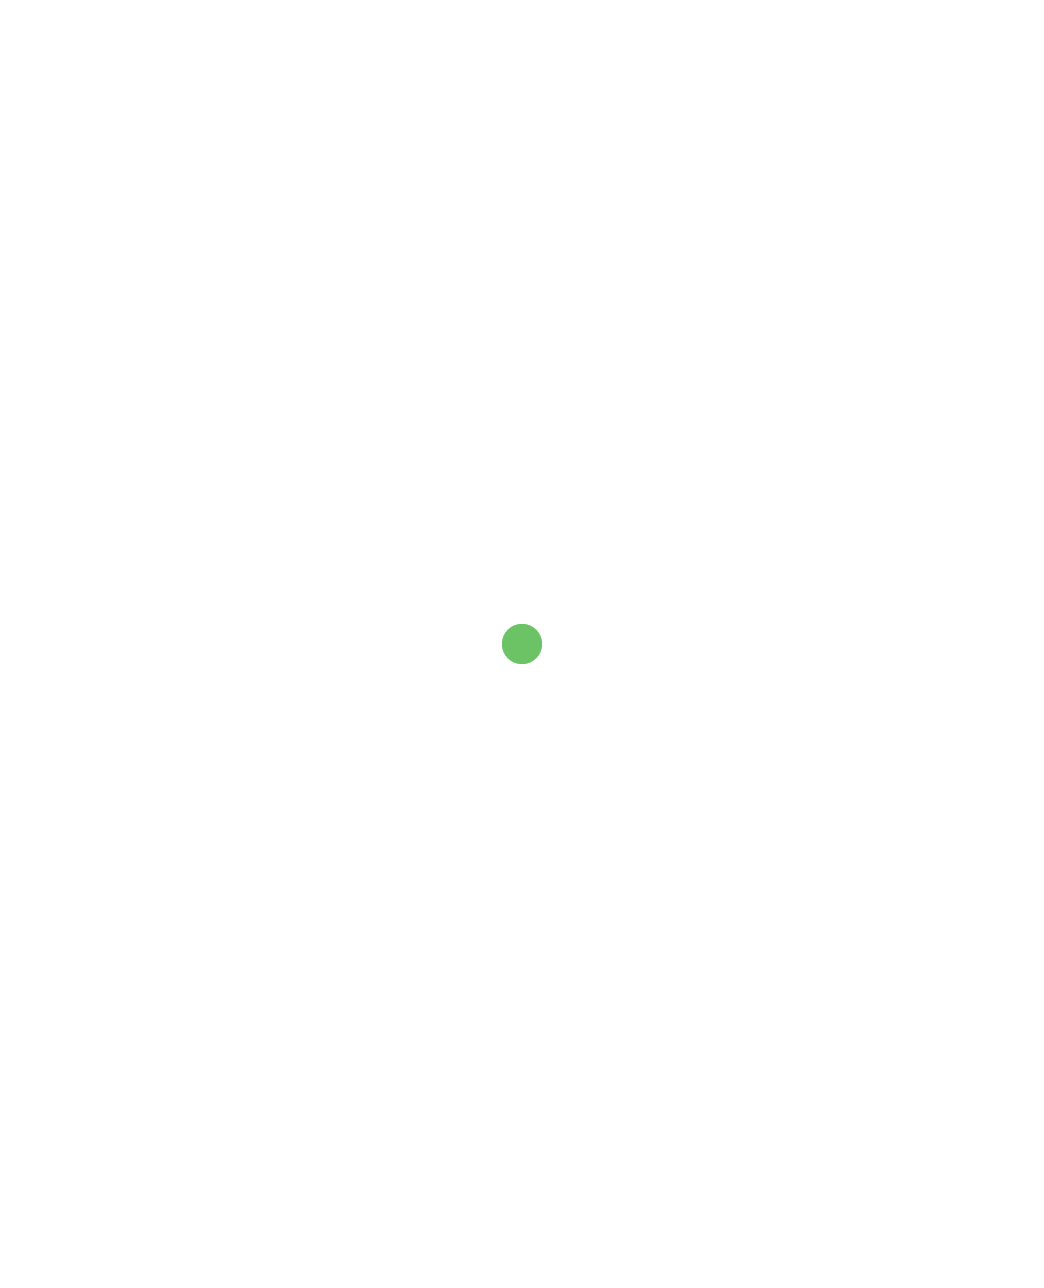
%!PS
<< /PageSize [1044 1288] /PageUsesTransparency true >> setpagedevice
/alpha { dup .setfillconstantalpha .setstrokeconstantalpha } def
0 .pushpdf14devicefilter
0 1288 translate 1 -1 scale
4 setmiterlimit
1 setgray
0 0 1044 1288 rectfill
0.588 0.831 0.569 setrgbcolor
newpath 522 644 20 0 360 arc closepath fill
0.6 alpha
0.314 0.722 0.282 setrgbcolor
newpath 522 644 20 0 360 arc closepath fill
.poppdf14devicefilter showpage
